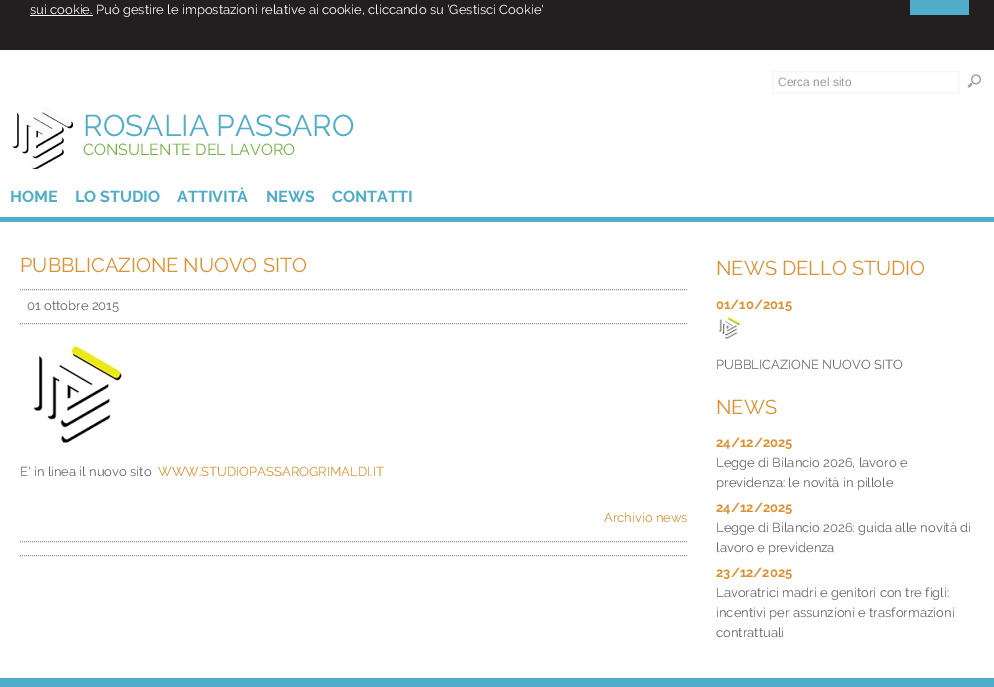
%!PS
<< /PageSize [994 687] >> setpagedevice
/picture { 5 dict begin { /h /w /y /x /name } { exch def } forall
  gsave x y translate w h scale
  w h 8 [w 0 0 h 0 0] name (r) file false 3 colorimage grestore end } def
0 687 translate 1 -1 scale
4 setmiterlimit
1 setgray
0 0 994 687 rectfill
0.137 0.122 0.125 setrgbcolor
0 0 994 50 rectfill
1 setgray
30 15 63 1 rectfill
/Raleway-Regular [13 0 0 -13 0 0] selectfont
30 14 moveto (sui cookie. Può gestire le impostazioni relative ai cookie, cliccando su 'Gestisci Cookie') show
0.31 0.678 0.788 setrgbcolor
910 0 59 15 rectfill
0.961 setgray
772.5 71.5 186 21 rectstroke
/LiberationSans-Regular [12 0 0 -12 0 0] selectfont
0.616 0.616 0.612 setrgbcolor
778 86 moveto (Cerca nel sito) show
(img1.rgb) 967 74 14 14 picture
0.31 0.678 0.788 setrgbcolor
0 217 994 5 rectfill
(img2.rgb) 10 106 63 63 picture
/Raleway-Regular [30 0 0 -30 0 0] selectfont
83 136 moveto (ROSALIA PASSARO) show
/Raleway-Regular [16 0 0 -16 0 0] selectfont
0.463 0.686 0.263 setrgbcolor
83 155 moveto (CONSULENTE DEL LAVORO) show
/Raleway-Bold [16 0 0 -16 0 0] selectfont
0.31 0.678 0.788 setrgbcolor
10 202 moveto (HOME) show
75 202 moveto (LO STUDIO) show
177 202 moveto (ATTIVITÀ) show
266 202 moveto (NEWS) show
332 202 moveto (CONTATTI) show
/Raleway-Regular [20 0 0 -20 0 0] selectfont
0.867 0.573 0.196 setrgbcolor
20 272 moveto (PUBBLICAZIONE NUOVO SITO) show
0.565 setgray
[1 1] 0 setdash
newpath 20 289.5 moveto 688 289.5 lineto stroke
newpath 20 323.5 moveto 688 323.5 lineto stroke
/Raleway-Regular [13 0 0 -13 0 0] selectfont
0.4 setgray
27 310 moveto (01 ottobre 2015) show
(img3.rgb) 33 344 90 99 picture
20 476 moveto (E' in linea il nuovo sito) show
0.867 0.573 0.196 setrgbcolor
158 476 moveto (WWW.STUDIOPASSAROGRIMALDI.IT) show
604 522 moveto (Archivio news) show
0.565 setgray
newpath 20 541.5 moveto 688 541.5 lineto stroke
newpath 20 555.5 moveto 688 555.5 lineto stroke
/Raleway-Regular [20 0 0 -20 0 0] selectfont
0.867 0.573 0.196 setrgbcolor
716 275 moveto (NEWS DELLO STUDIO) show
/Raleway-Bold [13 0 0 -13 0 0] selectfont
716 309 moveto (01/10/2015) show
(img4.rgb) 718 316 23 24 picture
/Raleway-Regular [13 0 0 -13 0 0] selectfont
0.4 setgray
716 369 moveto (PUBBLICAZIONE NUOVO SITO) show
/Raleway-Regular [20 0 0 -20 0 0] selectfont
0.867 0.573 0.196 setrgbcolor
716 414 moveto (NEWS) show
/Raleway-Bold [13 0 0 -13 0 0] selectfont
716 447 moveto (24/12/2025) show
/Raleway-Regular [13 0 0 -13 0 0] selectfont
0.4 setgray
716 467 moveto (Legge di Bilancio 2026, lavoro e) show
716 487 moveto (previdenza: le novità in pillole) show
/Raleway-Bold [13 0 0 -13 0 0] selectfont
0.867 0.573 0.196 setrgbcolor
716 512 moveto (24/12/2025) show
/Raleway-Regular [13 0 0 -13 0 0] selectfont
0.4 setgray
716 532 moveto (Legge di Bilancio 2026: guida alle novità di) show
716 552 moveto (lavoro e previdenza) show
/Raleway-Bold [13 0 0 -13 0 0] selectfont
0.867 0.573 0.196 setrgbcolor
716 577 moveto (23/12/2025) show
/Raleway-Regular [13 0 0 -13 0 0] selectfont
0.4 setgray
716 597 moveto (Lavoratrici madri e genitori con tre figli:) show
716 617 moveto (incentivi per assunzioni e trasformazioni) show
716 637 moveto (contrattuali) show
0.31 0.678 0.788 setrgbcolor
0 678 994 9 rectfill
showpage
